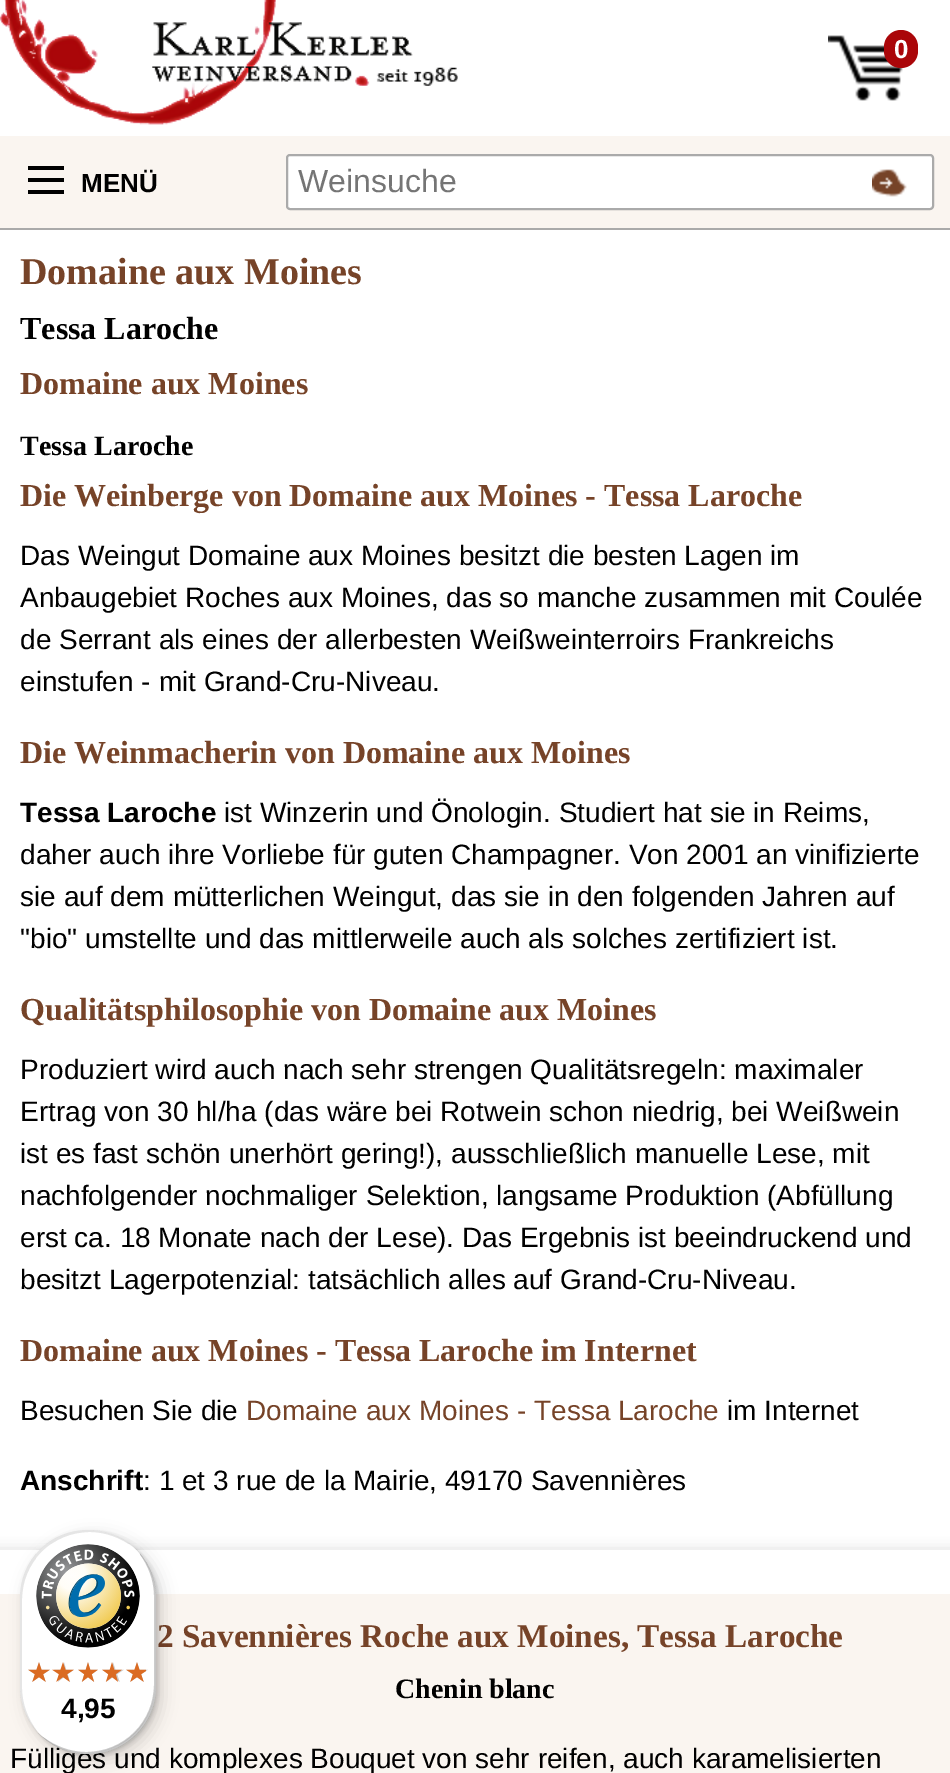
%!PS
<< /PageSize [950 1773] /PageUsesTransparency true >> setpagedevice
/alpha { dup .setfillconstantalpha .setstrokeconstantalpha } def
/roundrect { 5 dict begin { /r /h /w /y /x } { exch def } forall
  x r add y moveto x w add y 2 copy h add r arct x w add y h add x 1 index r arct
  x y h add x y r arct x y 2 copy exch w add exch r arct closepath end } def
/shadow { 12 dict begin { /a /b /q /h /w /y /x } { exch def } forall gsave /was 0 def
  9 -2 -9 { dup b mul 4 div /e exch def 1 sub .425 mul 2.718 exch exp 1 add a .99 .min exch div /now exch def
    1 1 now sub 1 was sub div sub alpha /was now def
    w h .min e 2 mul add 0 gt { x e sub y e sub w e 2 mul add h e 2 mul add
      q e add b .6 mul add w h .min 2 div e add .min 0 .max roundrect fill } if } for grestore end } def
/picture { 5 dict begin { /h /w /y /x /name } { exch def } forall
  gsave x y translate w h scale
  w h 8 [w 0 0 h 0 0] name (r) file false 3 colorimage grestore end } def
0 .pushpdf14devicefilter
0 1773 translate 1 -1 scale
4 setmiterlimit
1 setgray
0 0 950 1773 rectfill
0.98 0.961 0.941 setrgbcolor
0 136 950 92 rectfill
0.667 setgray
0 228 950 2 rectfill
0 setgray
28 190 36 4 rectfill
28 178 36 4 rectfill
28 166 36 4 rectfill
/LiberationSans-Bold [26 0 0 -26 0 0] selectfont
81 192 moveto (MENÜ) show
(img1.rgb) 0 0 458 125 picture
(img2.rgb) 828 35 75 66 picture
0.667 0.024 0.035 setrgbcolor
884 30 34 38 17 roundrect fill
1 setgray
894 58 moveto (0) show
287 155 646 54 3 roundrect gsave fill grestore
0.667 setgray
2 setlinewidth
stroke
/LiberationSans-Regular [32 0 0 -32 0 0] selectfont
0.459 setgray
298 192 moveto (Weinsuche) show
(img3.rgb) 872 169 35 28 picture
/LiberationSerif-Bold [38 0 0 -38 0 0] selectfont
0.463 0.263 0.157 setrgbcolor
20 284 moveto (Domaine aux Moines) show
/LiberationSerif-Bold [32 0 0 -32 0 0] selectfont
0 setgray
20 339 moveto (Tessa Laroche) show
0.463 0.263 0.157 setrgbcolor
20 394 moveto (Domaine aux Moines) show
/LiberationSerif-Bold [28 0 0 -28 0 0] selectfont
0 setgray
20 455 moveto (Tessa Laroche) show
/LiberationSerif-Bold [32 0 0 -32 0 0] selectfont
0.463 0.263 0.157 setrgbcolor
20 506 moveto (Die Weinberge von Domaine aux Moines - Tessa Laroche) show
/LiberationSans-Regular [28 0 0 -28 0 0] selectfont
0 setgray
20 565 moveto (Das Weingut Domaine aux Moines besitzt die besten Lagen im) show
20 607 moveto (Anbaugebiet Roches aux Moines, das so manche zusammen mit Coulée) show
20 649 moveto (de Serrant als eines der allerbesten Weißweinterroirs Frankreichs) show
20 691 moveto (einstufen - mit Grand-Cru-Niveau.) show
/LiberationSerif-Bold [32 0 0 -32 0 0] selectfont
0.463 0.263 0.157 setrgbcolor
20 763 moveto (Die Weinmacherin von Domaine aux Moines) show
/LiberationSans-Bold [28 0 0 -28 0 0] selectfont
0 setgray
20 822 moveto (Tessa Laroche) show
/LiberationSans-Regular [28 0 0 -28 0 0] selectfont
224 822 moveto (ist Winzerin und Önologin. Studiert hat sie in Reims,) show
20 864 moveto (daher auch ihre Vorliebe für guten Champagner. Von 2001 an vinifizierte) show
20 906 moveto (sie auf dem mütterlichen Weingut, das sie in den folgenden Jahren auf) show
20 948 moveto ("bio" umstellte und das mittlerweile auch als solches zertifiziert ist.) show
/LiberationSerif-Bold [32 0 0 -32 0 0] selectfont
0.463 0.263 0.157 setrgbcolor
20 1020 moveto (Qualitätsphilosophie von Domaine aux Moines) show
/LiberationSans-Regular [28 0 0 -28 0 0] selectfont
0 setgray
20 1079 moveto (Produziert wird auch nach sehr strengen Qualitätsregeln: maximaler) show
20 1121 moveto (Ertrag von 30 hl/ha \(das wäre bei Rotwein schon niedrig, bei Weißwein) show
20 1163 moveto (ist es fast schön unerhört gering!\), ausschließlich manuelle Lese, mit) show
20 1205 moveto (nachfolgender nochmaliger Selektion, langsame Produktion \(Abfüllung) show
20 1247 moveto (erst ca. 18 Monate nach der Lese\). Das Ergebnis ist beeindruckend und) show
20 1289 moveto (besitzt Lagerpotenzial: tatsächlich alles auf Grand-Cru-Niveau.) show
/LiberationSerif-Bold [32 0 0 -32 0 0] selectfont
0.463 0.263 0.157 setrgbcolor
20 1361 moveto (Domaine aux Moines - Tessa Laroche im Internet) show
/LiberationSans-Regular [28 0 0 -28 0 0] selectfont
0 setgray
20 1420 moveto (Besuchen Sie die) show
0.463 0.263 0.157 setrgbcolor
246 1420 moveto (Domaine aux Moines - Tessa Laroche) show
0 setgray
727 1420 moveto (im Internet) show
/LiberationSans-Bold [28 0 0 -28 0 0] selectfont
20 1490 moveto (Anschrift) show
/LiberationSans-Regular [28 0 0 -28 0 0] selectfont
143 1490 moveto (: 1 et 3 rue de la Mairie, 49170 Savennières) show
0.8 setgray
-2 1552 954 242 0 7 1 shadow
0.98 0.961 0.941 setrgbcolor
0 1594 950 179 rectfill
1 setgray
0 1550 950 44 rectfill
/LiberationSerif-Bold [33.25 0 0 -33.25 0 0] selectfont
0.463 0.263 0.157 setrgbcolor
157 1647 moveto (2 Savennières Roche aux Moines, Tessa Laroche) show
/LiberationSerif-Bold [28 0 0 -28 0 0] selectfont
0 setgray
395 1698 moveto (Chenin blanc) show
/LiberationSans-Regular [28 0 0 -28 0 0] selectfont
10 1768 moveto (Fülliges und komplexes Bouquet von sehr reifen, auch karamelisierten) show
26 1536 136 224 68 8 0.15 shadow
22 1532 136 224 68 2 0.15 shadow
1 setgray
20 1530 136 224 68 roundrect fill
0.1 alpha
0 setgray
newpath 90 1532 moveto 106 1532 121 1538 133 1547 curveto 121 1536 105 1530 88 1530 curveto 50 1530 20 1560 20 1598 curveto 20 1686 lineto 20 1703 26 1719 37 1731 curveto 28 1719 22 1704 22 1688 curveto 22 1600 lineto 22 1562 52 1532 90 1532 curveto closepath fill
0.2 alpha
newpath 43 1737 moveto 55 1748 71 1754 88 1754 curveto 126 1754 156 1724 156 1686 curveto 156 1598 lineto 156 1581 150 1565 139 1553 curveto 148 1565 154 1580 154 1596 curveto 154 1684 lineto 154 1722 124 1752 86 1752 curveto 70 1752 55 1746 43 1737 curveto closepath fill
0.196 setgray
newpath 38 1733 moveto 51 1746 68 1754 88 1754 curveto 126 1754 156 1724 156 1686 curveto 156 1598 lineto 156 1578 148 1561 135 1548 curveto 147 1561 155 1578 155 1597 curveto 155 1685 lineto 155 1722 124 1753 87 1753 curveto 68 1753 51 1745 38 1733 curveto closepath fill
0.3 alpha
1 setgray
newpath 47 1740 moveto 59 1749 73 1754 88 1754 curveto 126 1754 156 1724 156 1686 curveto 156 1598 lineto 156 1583 151 1569 142 1557 curveto 150 1568 155 1582 155 1597 curveto 155 1685 lineto 155 1723 125 1753 87 1753 curveto 72 1753 58 1748 47 1740 curveto closepath fill
1 alpha
(img4.rgb) 36 1544 104 104 picture
(img5.rgb) 28 1662 22 20 picture
(img6.rgb) 54 1662 20 20 picture
(img7.rgb) 78 1662 20 20 picture
(img8.rgb) 102 1662 22 20 picture
(img8.rgb) 126 1662 22 20 picture
(img9.rgb) 28 1662 22 20 picture
(img10.rgb) 52 1662 22 20 picture
(img11.rgb) 78 1662 20 20 picture
(img12.rgb) 102 1662 20 20 picture
(img13.rgb) 126 1662 20 20 picture
/LiberationSans-Bold [28 0 0 -28 0 0] selectfont
0 setgray
61 1718 moveto (4,95) show
.poppdf14devicefilter showpage
